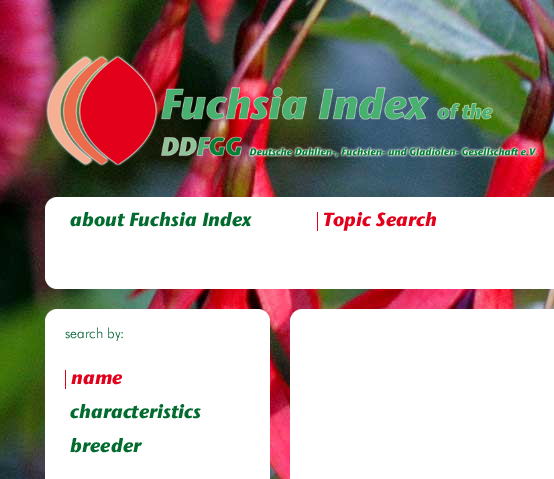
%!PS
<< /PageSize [554 479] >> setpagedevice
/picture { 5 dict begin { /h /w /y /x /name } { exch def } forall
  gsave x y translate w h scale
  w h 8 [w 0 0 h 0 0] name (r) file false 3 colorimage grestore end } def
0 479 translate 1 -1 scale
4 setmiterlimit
1 setgray
0 0 554 479 rectfill
(img1.rgb) 0 0 554 479 picture
(img2.rgb) 45 55 494 111 picture
(img3.rgb) 45 197 12 12 picture
57 197 497 12 rectfill
45 209 509 68 rectfill
/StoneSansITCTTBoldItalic-Bold [19 0 0 -19 0 0] selectfont
0.008 0.424 0.184 setrgbcolor
70 226 moveto (about Fuchsia Index) show
0.886 0 0.102 setrgbcolor
323 226 moveto (Topic Search) show
317 212 1 19 rectfill
(img4.rgb) 45 277 12 12 picture
1 setgray
57 277 497 12 rectfill
(img5.rgb) 45 309 12 12 picture
57 309 201 12 rectfill
(img6.rgb) 258 309 12 12 picture
45 321 225 158 rectfill
/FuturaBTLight-Light [14 0 0 -14 0 0] selectfont
0 0.4 0.2 setrgbcolor
65 338 moveto (search by:) show
/StoneSansITCTTBoldItalic-Bold [19 0 0 -19 0 0] selectfont
0.886 0 0.102 setrgbcolor
71 384 moveto (name) show
65 370 1 19 rectfill
0.008 0.424 0.184 setrgbcolor
70 418 moveto (characteristics) show
70 452 moveto (breeder) show
(img7.rgb) 290 309 12 12 picture
1 setgray
302 309 252 12 rectfill
290 321 264 158 rectfill
showpage
